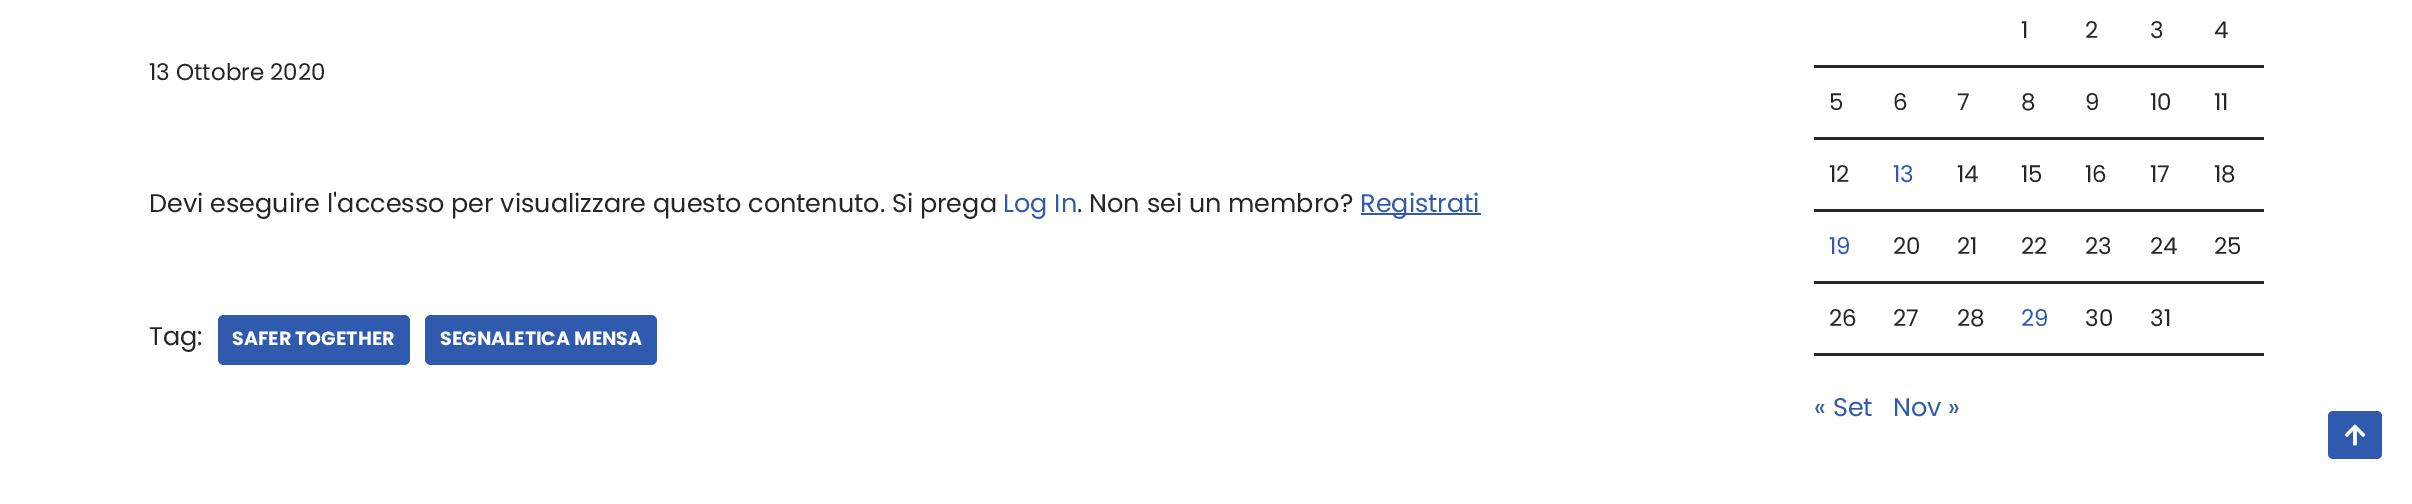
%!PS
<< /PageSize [2412 504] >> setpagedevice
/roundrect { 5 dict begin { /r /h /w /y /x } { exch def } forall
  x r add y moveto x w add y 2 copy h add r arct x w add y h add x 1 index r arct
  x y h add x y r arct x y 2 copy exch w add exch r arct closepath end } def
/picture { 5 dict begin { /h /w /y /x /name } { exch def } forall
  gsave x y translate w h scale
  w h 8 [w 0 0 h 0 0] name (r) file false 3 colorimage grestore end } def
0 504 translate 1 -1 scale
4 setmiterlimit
1 setgray
0 0 2412 504 rectfill
/Poppins-Regular [23 0 0 -23 0 0] selectfont
0.153 0.149 0.149 setrgbcolor
149 80 moveto (13 Ottobre 2020) show
/Poppins-Regular [25.5 0 0 -25.5 0 0] selectfont
149 212 moveto (Devi eseguire l'accesso per visualizzare questo contenuto. Si prega) show
0.184 0.353 0.682 setrgbcolor
1003 212 moveto (Log In) show
0.153 0.149 0.149 setrgbcolor
1077 212 moveto (. Non sei un membro?) show
0.184 0.353 0.682 setrgbcolor
1361 213 120 2 rectfill
1360 212 moveto (Registrati) show
0.153 0.149 0.149 setrgbcolor
149 345 moveto (Tag:) show
0.184 0.353 0.682 setrgbcolor
218 315 192 50 6 roundrect fill
/Poppins-Bold [19.1 0 0 -19.1 0 0] selectfont
1 setgray
232 345 moveto (SAFER TOGETHER) show
0.184 0.353 0.682 setrgbcolor
425 315 232 50 6 roundrect fill
1 setgray
440 345 moveto (SEGNALETICA MENSA) show
/Poppins-Regular [23 0 0 -23 0 0] selectfont
0.153 0.149 0.149 setrgbcolor
2021 38 moveto (1) show
2085 38 moveto (2) show
2150 38 moveto (3) show
2214 38 moveto (4) show
1814 65 450 3 rectfill
1814 137 450 3 rectfill
1829 110 moveto (5) show
1893 110 moveto (6) show
1957 110 moveto (7) show
2021 110 moveto (8) show
2085 110 moveto (9) show
2150 110 moveto (10) show
2214 110 moveto (11) show
1814 209 450 3 rectfill
1829 182 moveto (12) show
0.184 0.353 0.682 setrgbcolor
1893 182 moveto (13) show
0.153 0.149 0.149 setrgbcolor
1957 182 moveto (14) show
2021 182 moveto (15) show
2085 182 moveto (16) show
2150 182 moveto (17) show
2214 182 moveto (18) show
1814 281 450 3 rectfill
0.184 0.353 0.682 setrgbcolor
1829 254 moveto (19) show
0.153 0.149 0.149 setrgbcolor
1893 254 moveto (20) show
1957 254 moveto (21) show
2021 254 moveto (22) show
2085 254 moveto (23) show
2150 254 moveto (24) show
2214 254 moveto (25) show
1814 353 450 3 rectfill
1829 326 moveto (26) show
1893 326 moveto (27) show
1957 326 moveto (28) show
0.184 0.353 0.682 setrgbcolor
2021 326 moveto (29) show
0.153 0.149 0.149 setrgbcolor
2085 326 moveto (30) show
2150 326 moveto (31) show
/Poppins-Regular [25.5 0 0 -25.5 0 0] selectfont
0.184 0.353 0.682 setrgbcolor
1814 416 moveto (« Set) show
1893 416 moveto (Nov ») show
2328 411 54 48 5 roundrect fill
(img1.rgb) 2344 424 22 22 picture
showpage
